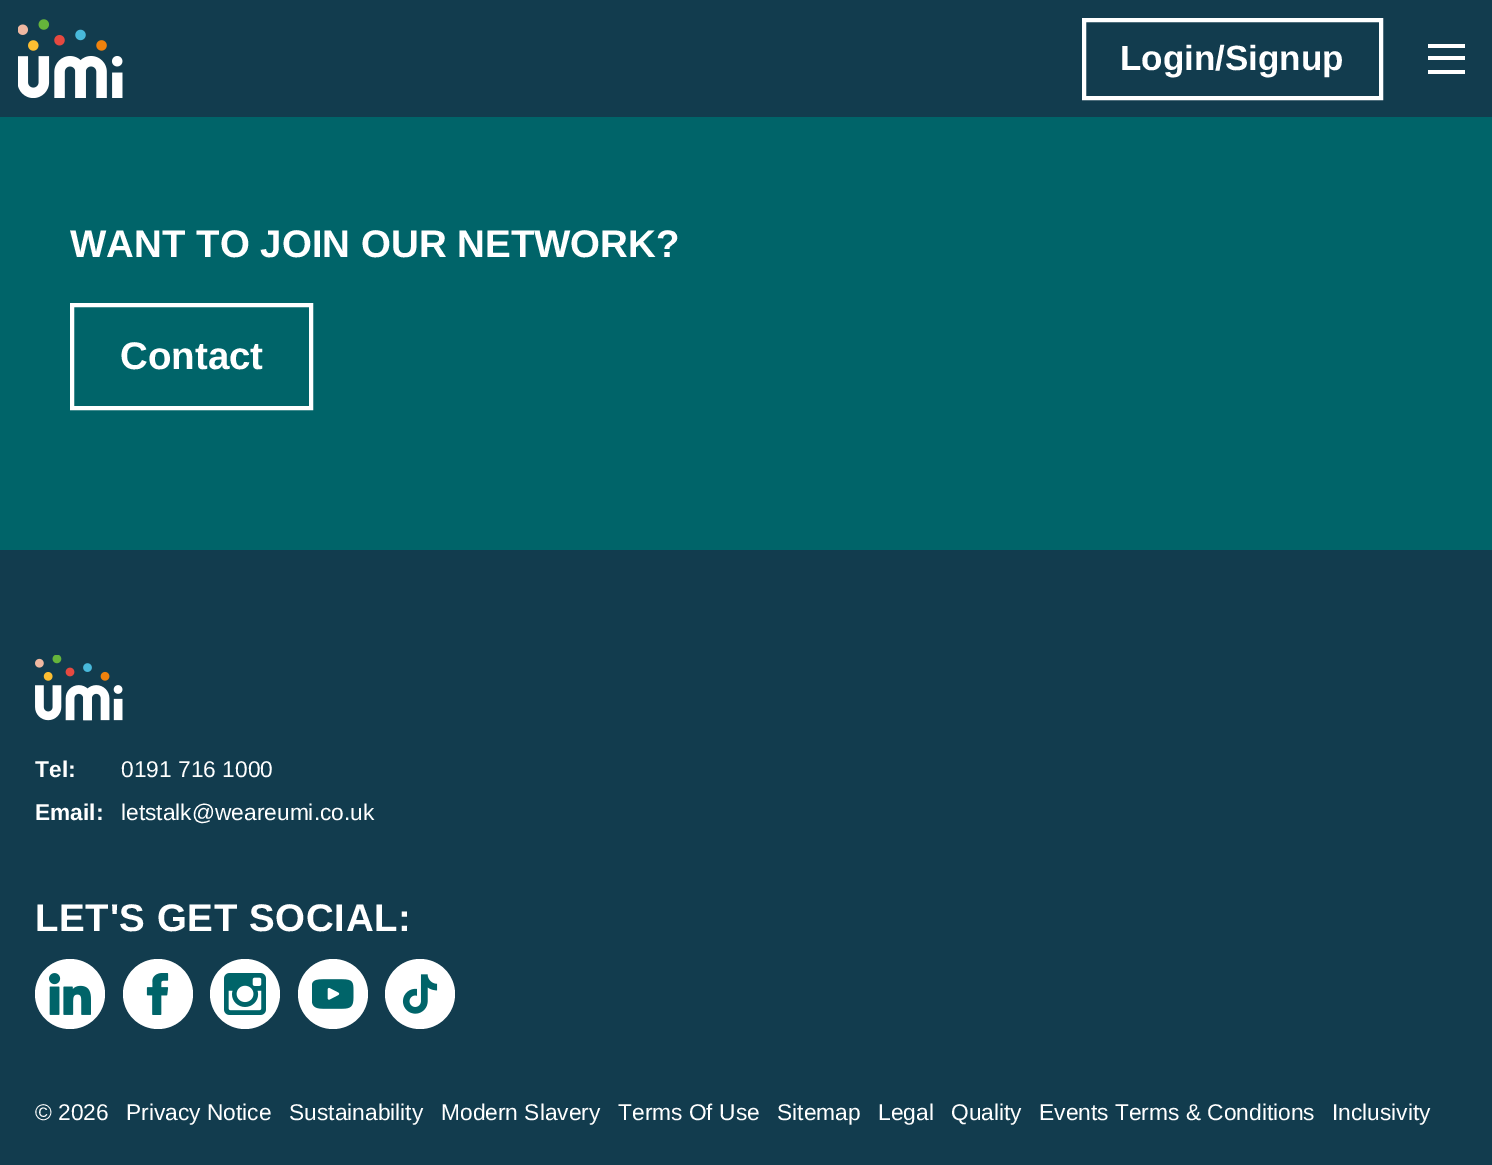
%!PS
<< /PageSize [1492 1165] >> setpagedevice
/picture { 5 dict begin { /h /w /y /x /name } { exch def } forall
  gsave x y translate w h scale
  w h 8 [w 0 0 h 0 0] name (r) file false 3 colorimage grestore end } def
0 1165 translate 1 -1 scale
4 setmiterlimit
0.071 0.235 0.306 setrgbcolor
0 0 1492 1165 rectfill
(img1.rgb) 18 19 105 79 picture
1 setgray
4 setlinewidth
1084 20 297 78 rectstroke
/LiberationSans-Bold [35 0 0 -35 0 0] selectfont
1120 70 moveto (Login/Signup) show
1428 44 37 4 rectfill
1428 56 37 4 rectfill
1428 70 37 4 rectfill
0 0.392 0.412 setrgbcolor
0 117 1492 433 rectfill
/LiberationSans-Bold [38.5 0 0 -38.5 0 0] selectfont
1 setgray
70 257 moveto (WANT TO JOIN OUR NETWORK?) show
72 305 239 103 rectstroke
120 369 moveto (Contact) show
(img2.rgb) 35 655 88 66 picture
/LiberationSans-Bold [22.75 0 0 -22.75 0 0] selectfont
35 777 moveto (Tel:) show
/LiberationSans-Regular [22.75 0 0 -22.75 0 0] selectfont
121 777 moveto (0191 716 1000) show
/LiberationSans-Bold [22.75 0 0 -22.75 0 0] selectfont
35 820 moveto (Email:) show
/LiberationSans-Regular [22.75 0 0 -22.75 0 0] selectfont
121 820 moveto (letstalk@weareumi.co.uk) show
/LiberationSans-Bold [38.5 0 0 -38.5 0 0] selectfont
35 931 moveto 0.6 0 (LET'S GET SOCIAL:) ashow
newpath 70 994 35 0 360 arc closepath fill
(img3.rgb) 49 973 42 42 picture
newpath 158 994 35 0 360 arc closepath fill
(img4.rgb) 146 973 23 42 picture
newpath 245 994 35 0 360 arc closepath fill
(img5.rgb) 224 973 42 42 picture
newpath 333 994 35 0 360 arc closepath fill
(img6.rgb) 312 979 42 30 picture
newpath 420 994 35 0 360 arc closepath fill
(img7.rgb) 402 974 36 40 picture
/LiberationSans-Regular [22.75 0 0 -22.75 0 0] selectfont
35 1120 moveto (© 2026) show
126 1120 moveto (Privacy Notice) show
289 1120 moveto (Sustainability) show
441 1120 moveto (Modern Slavery) show
618 1120 moveto (Terms Of Use) show
777 1120 moveto (Sitemap) show
878 1120 moveto (Legal) show
951 1120 moveto (Quality) show
1039 1120 moveto (Events Terms & Conditions) show
1332 1120 moveto (Inclusivity) show
showpage
